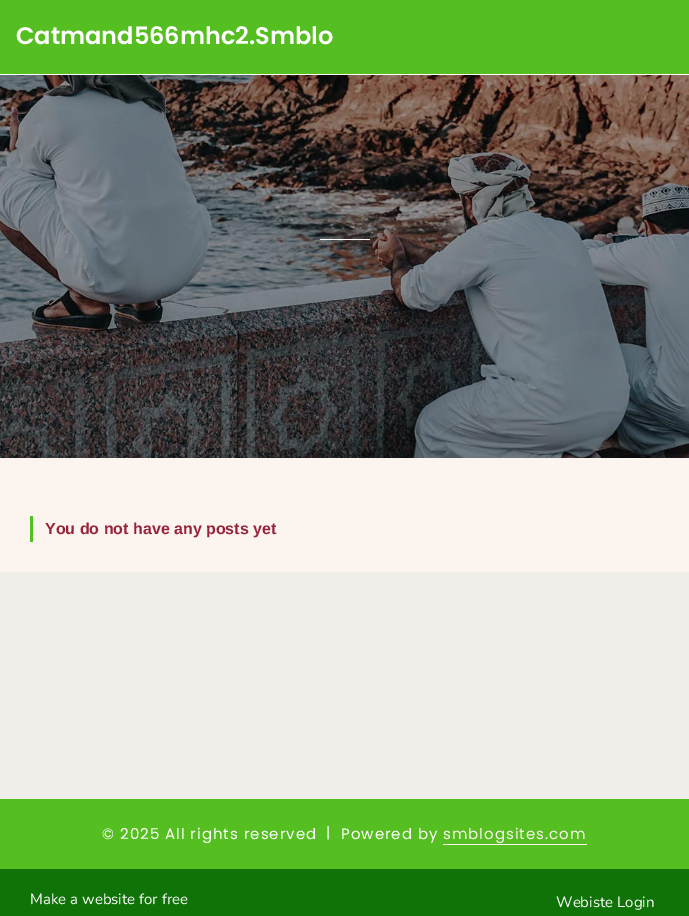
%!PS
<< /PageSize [689 916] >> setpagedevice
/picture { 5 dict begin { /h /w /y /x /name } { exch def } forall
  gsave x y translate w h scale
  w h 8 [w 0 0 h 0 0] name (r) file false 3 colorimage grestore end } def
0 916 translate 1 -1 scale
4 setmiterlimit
0.937 0.933 0.914 setrgbcolor
0 0 689 916 rectfill
0.333 0.745 0.129 setrgbcolor
0 0 689 74 rectfill
1 setgray
0 74 689 1 rectfill
/Poppins-SemiBold [24 0 0 -24 0 0] selectfont
16 44 moveto (Catmand566mhc2.Smblo) show
(img1.rgb) 0 75 689 383 picture
320 239 50 1 rectfill
0.988 0.957 0.937 setrgbcolor
0 458 689 114 rectfill
0.333 0.745 0.129 setrgbcolor
30 516 3 26 rectfill
/LiberationSans-Bold [16 0 0 -16 0 0] selectfont
0.588 0.141 0.227 setrgbcolor
45 534 moveto (You do not have any posts yet) show
0.333 0.745 0.129 setrgbcolor
0 799 689 70 rectfill
/Poppins-Regular [15 0 0 -15 0 0] selectfont
1 setgray
102 839 moveto 1 0 (© 2025 All rights reserved) ashow
326 838 moveto 1 0 (|) ashow
341 839 moveto 1 0 (Powered by) ashow
0.988 0.957 0.937 setrgbcolor
443 839 moveto 1 0 (smblogsites.com) ashow
443 844 144 1 rectfill
0.063 0.451 0.031 setrgbcolor
0 869 689 47 rectfill
/Nunito-Regular [15 0 0 -15 0 0] selectfont
1 setgray
30 904 moveto (Make a website for free) show
556 907 moveto (Webiste Login) show
showpage
